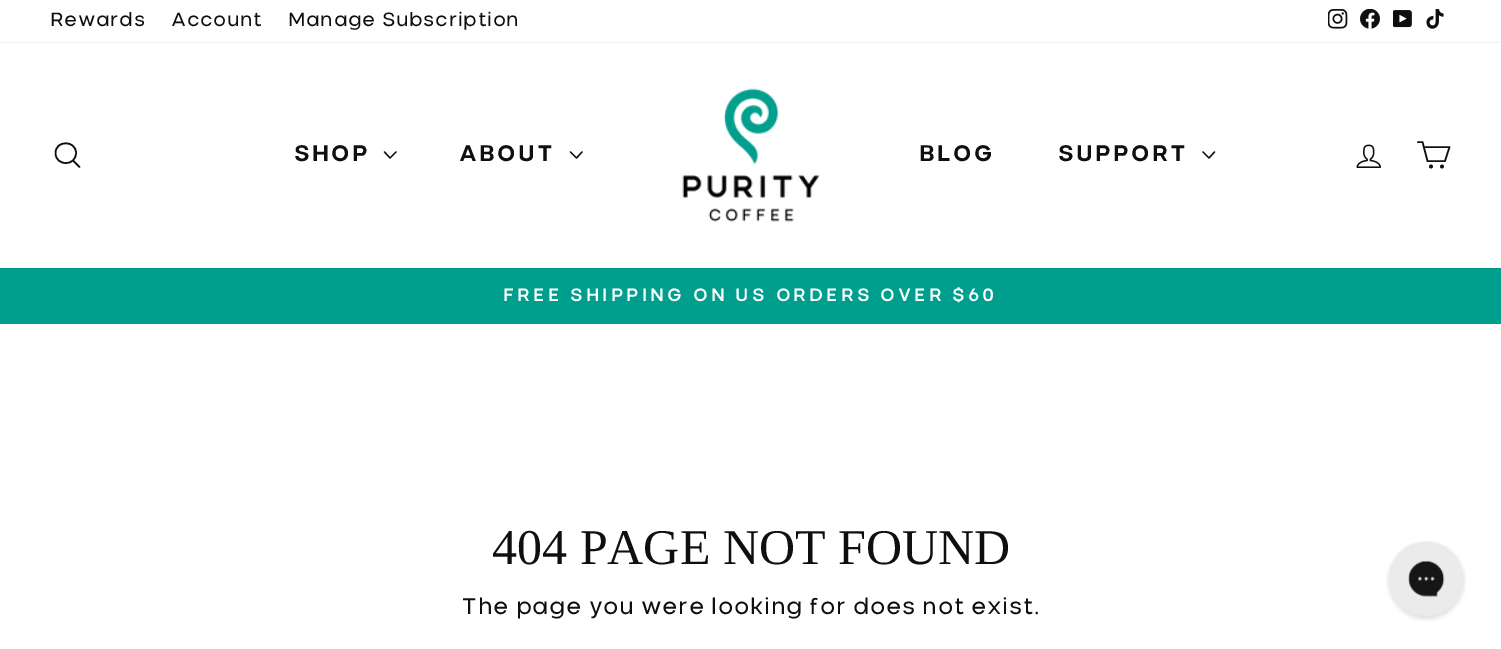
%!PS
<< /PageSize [1501 649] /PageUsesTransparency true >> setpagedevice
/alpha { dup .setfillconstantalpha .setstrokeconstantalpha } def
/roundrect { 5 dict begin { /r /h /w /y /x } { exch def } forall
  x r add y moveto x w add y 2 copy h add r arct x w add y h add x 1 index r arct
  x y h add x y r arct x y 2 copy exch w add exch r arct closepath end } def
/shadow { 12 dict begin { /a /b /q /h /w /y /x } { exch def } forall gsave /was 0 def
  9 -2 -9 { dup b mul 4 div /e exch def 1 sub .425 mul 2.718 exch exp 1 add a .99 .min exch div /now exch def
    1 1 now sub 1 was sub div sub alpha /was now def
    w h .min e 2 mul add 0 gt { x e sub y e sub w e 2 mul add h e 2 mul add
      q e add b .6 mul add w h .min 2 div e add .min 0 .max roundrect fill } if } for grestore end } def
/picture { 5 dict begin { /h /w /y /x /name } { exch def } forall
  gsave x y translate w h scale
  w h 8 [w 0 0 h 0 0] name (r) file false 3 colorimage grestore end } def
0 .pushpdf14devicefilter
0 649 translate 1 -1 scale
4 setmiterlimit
1 setgray
0 0 1501 649 rectfill
/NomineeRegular-Regular [19.1 0 0 -19.1 0 0] selectfont
0.059 setgray
50 26 moveto 0.55 0 (Rewards) ashow
171 26 moveto 0.55 0 (Account) ashow
288 26 moveto 0.55 0 (Manage Subscription) ashow
(img1.rgb) 1328 9 20 20 picture
(img2.rgb) 1360 9 20 20 picture
(img3.rgb) 1393 10 19 18 picture
(img4.rgb) 1426 9 18 20 picture
0 0.624 0.553 setrgbcolor
0 268 1501 56 rectfill
0 setgray
0 43 1501 225 0 0.5 0.2 shadow
1 setgray
0 43 1501 225 rectfill
0.059 setgray
1.6 setlinewidth
1 setlinecap
1 setlinejoin
newpath 76 153 moveto 76 166.5 55.5 166.5 55.5 153 curveto 55.5 140 76 140 76 153 curveto closepath 79.5 167 moveto 73 160.5 lineto stroke
/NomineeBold-Bold [22.5 0 0 -22.5 0 0] selectfont
294 161 moveto 2.25 0 (SHOP) ashow
1.3 setlinewidth
newpath 384.5 152 moveto 390 158 lineto 396 152 lineto stroke
459 161 moveto 2.25 0 (ABOUT) ashow
newpath 570.5 152 moveto 576.5 158 lineto 582 152 lineto stroke
(img5.rgb) 682 88 138 134 picture
919 161 moveto 2.25 0 (BLOG) ashow
1058 161 moveto 2.25 0 (SUPPORT) ashow
newpath 1203 152 moveto 1209 158 lineto 1214.5 152 lineto stroke
(img6.rgb) 1356 144 25 24 picture
1.6 setlinewidth
newpath 1424 147 moveto 1449.5 147 lineto 1445 161 lineto 1427.5 161 lineto 1422.5 142 lineto 1418 142 lineto stroke
0 setlinecap
0 setlinejoin
newpath 1431 166.5 1.1 0 360 arc closepath stroke
newpath 1442 166.5 1.1 0 360 arc closepath stroke
/NomineeRegular-Bold [17.2 0 0 -17.2 0 0] selectfont
1 setgray
503 301 moveto 3.45 0 (FREE SHIPPING ON US ORDERS OVER $60) ashow
/LiberationSerif-Regular [50 0 0 -50 0 0] selectfont
0.059 setgray
492 564 moveto (404 PAGE NOT FOUND) show
/NomineeRegular-Regular [22.5 0 0 -22.5 0 0] selectfont
461 614 moveto 0.55 0 (The page you were looking for does not exist.) ashow
(img7.rgb) 1386 541 80 80 picture
.poppdf14devicefilter showpage
